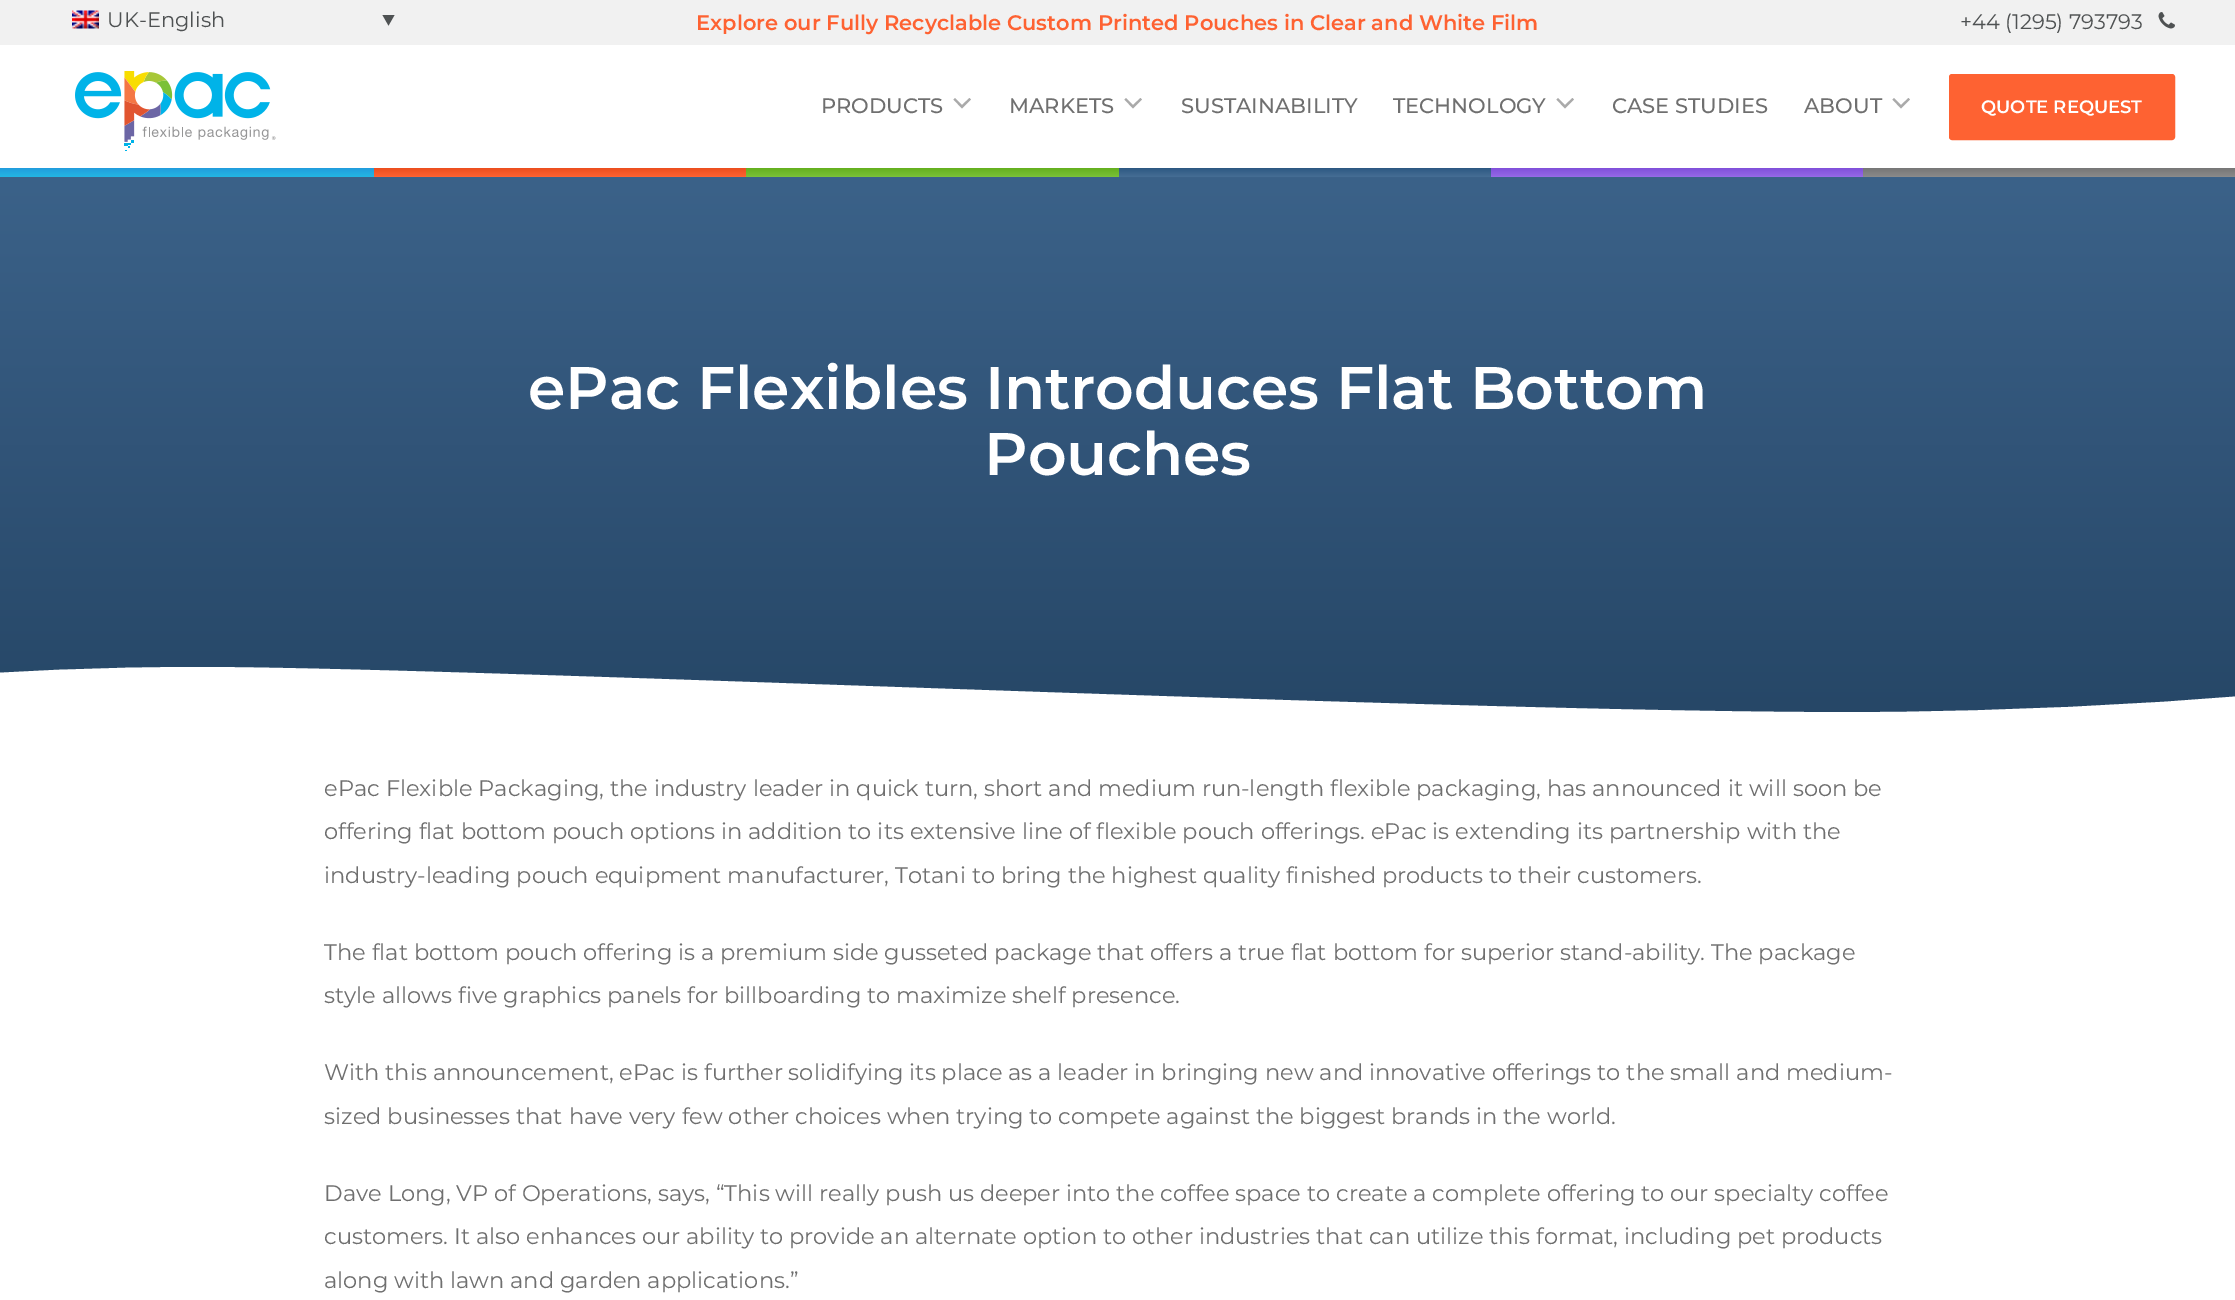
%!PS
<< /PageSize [2235 1300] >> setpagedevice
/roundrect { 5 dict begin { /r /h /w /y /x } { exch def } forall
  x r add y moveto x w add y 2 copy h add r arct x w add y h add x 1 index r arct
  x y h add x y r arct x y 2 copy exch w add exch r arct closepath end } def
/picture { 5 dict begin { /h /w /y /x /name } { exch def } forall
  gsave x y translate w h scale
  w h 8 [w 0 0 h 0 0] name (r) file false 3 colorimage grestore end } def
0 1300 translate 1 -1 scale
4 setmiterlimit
1 setgray
0 0 2235 1300 rectfill
0.945 setgray
0 0 2235 45 rectfill
(img1.rgb) 72 10 27 19 picture
/Montserrat-Regular [21 0 0 -21 0 0] selectfont
0.31 0.322 0.325 setrgbcolor
107 27 moveto (UK-English) show
newpath 382.5 15 moveto 394.5 15 lineto 388.5 25.5 lineto closepath fill
/Montserrat-SemiBold [21 0 0 -21 0 0] selectfont
0.996 0.384 0.196 setrgbcolor
696 30 moveto (Explore our Fully Recyclable Custom Printed Pouches in Clear and White Film) show
/Montserrat-Regular [21 0 0 -21 0 0] selectfont
0.31 0.322 0.325 setrgbcolor
1960 29 moveto (+44 \(1295\) 793793) show
(img2.rgb) 2158 12 17 17 picture
(img3.rgb) 75 71 201 80 picture
/Montserrat-Medium [21 0 0 -21 0 0] selectfont
0.435 setgray
821 113 moveto (PRODUCTS) show
0.667 setgray
newpath 953.5 99.5 moveto 962 108.5 lineto 971 99.5 lineto 969.5 98 lineto 962 105 lineto 955 98 lineto closepath eofill
0.435 setgray
1009 113 moveto (MARKETS) show
0.667 setgray
newpath 1124.5 99.5 moveto 1133 108.5 lineto 1142 99.5 lineto 1140.5 98 lineto 1133 105 lineto 1126 98 lineto closepath eofill
0.435 setgray
1181 113 moveto (SUSTAINABILITY) show
1393 113 moveto (TECHNOLOGY) show
0.667 setgray
newpath 1556.5 99.5 moveto 1565 108.5 lineto 1574 99.5 lineto 1572.5 98 lineto 1565 105 lineto 1558 98 lineto closepath eofill
0.435 setgray
1612 113 moveto (CASE STUDIES) show
1804 113 moveto (ABOUT) show
0.667 setgray
newpath 1892.5 99.5 moveto 1901 108.5 lineto 1910 99.5 lineto 1908.5 98 lineto 1901 105 lineto 1894 98 lineto closepath eofill
0.996 0.384 0.196 setrgbcolor
1950.5 75.5 223 63 1.5 roundrect gsave fill grestore
3 setlinewidth
stroke
/Montserrat-SemiBold [18 0 0 -18 0 0] selectfont
1 setgray
1981 113 moveto (QUOTE REQUEST) show
gsave newpath 1863 168 moveto 2235 168 lineto 2235 177 lineto 1863 177 lineto closepath clip newpath
<< /ShadingType 2 /ColorSpace /DeviceRGB /Coords [2048 168 2048 177] /Extend [true true] /Function << /FunctionType 2 /Domain [0 1] /C0 [0.463 0.463 0.463] /C1 [0.541 0.541 0.541] /N 1 >> >> shfill grestore
gsave newpath 1491 168 moveto 1863 168 lineto 1863 177 lineto 1491 177 lineto closepath clip newpath
<< /ShadingType 2 /ColorSpace /DeviceRGB /Coords [1676 168 1676 177] /Extend [true true] /Function << /FunctionType 2 /Domain [0 1] /C0 [0.502 0.31 0.855] /C1 [0.584 0.412 0.906] /N 1 >> >> shfill grestore
gsave newpath 1119 168 moveto 1491 168 lineto 1491 177 lineto 1119 177 lineto closepath clip newpath
<< /ShadingType 2 /ColorSpace /DeviceRGB /Coords [1304 177 1304 168] /Extend [true true] /Function << /FunctionType 2 /Domain [0 1] /C0 [0.275 0.431 0.584] /C1 [0.176 0.345 0.51] /N 1 >> >> shfill grestore
gsave newpath 746 168 moveto 1119 168 lineto 1119 177 lineto 746 177 lineto closepath clip newpath
<< /ShadingType 2 /ColorSpace /DeviceRGB /Coords [931 168 931 177] /Extend [true true] /Function << /FunctionType 2 /Domain [0 1] /C0 [0.392 0.69 0.118] /C1 [0.478 0.757 0.22] /N 1 >> >> shfill grestore
gsave newpath 374 168 moveto 746 168 lineto 746 177 lineto 374 177 lineto closepath clip newpath
<< /ShadingType 2 /ColorSpace /DeviceRGB /Coords [559 168 559 177] /Extend [true true] /Function << /FunctionType 2 /Domain [0 1] /C0 [0.922 0.306 0.118] /C1 [0.996 0.384 0.196] /N 1 >> >> shfill grestore
gsave newpath 0 168 moveto 374 168 lineto 374 177 lineto 0 177 lineto closepath clip newpath
<< /ShadingType 2 /ColorSpace /DeviceRGB /Coords [187 177 187 168] /Extend [true true] /Function << /FunctionType 2 /Domain [0 1] /C0 [0.137 0.714 0.89] /C1 [0.129 0.616 0.867] /N 1 >> >> shfill grestore
gsave newpath 0 177 moveto 2235 177 lineto 2235 713 lineto 0 713 lineto closepath clip newpath
<< /ShadingType 2 /ColorSpace /DeviceRGB /Coords [1118 723 1118 120] /Extend [true true] /Function << /FunctionType 2 /Domain [0 1] /C0 [0.149 0.275 0.4] /C1 [0.239 0.396 0.553] /N 1 >> >> shfill grestore
/Montserrat-SemiBold [60 0 0 -60 0 0] selectfont
528 409 moveto (ePac Flexibles Introduces Flat Bottom) show
984 475 moveto (Pouches) show
gsave
0 650 2235 73 rectclip
newpath -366 724 moveto 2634 724 lineto 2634 650 lineto 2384 689 2133 710 1880 712 curveto 1501 715 473 667 196 667 curveto 12 667 -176 682 -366 712 curveto closepath eofill
grestore
/Montserrat-Regular [22.5 0 0 -22.5 0 0] selectfont
0.435 setgray
324 796 moveto (ePac Flexible Packaging, the industry leader in quick turn, short and medium run-length flexible packaging, has announced it will soon be) show
324 839 moveto (offering flat bottom pouch options in addition to its extensive line of flexible pouch offerings. ePac is extending its partnership with the) show
324 883 moveto (industry-leading pouch equipment manufacturer, Totani to bring the highest quality finished products to their customers.) show
324 960 moveto (The flat bottom pouch offering is a premium side gusseted package that offers a true flat bottom for superior stand-ability. The package) show
324 1003 moveto (style allows five graphics panels for billboarding to maximize shelf presence.) show
324 1080 moveto (With this announcement, ePac is further solidifying its place as a leader in bringing new and innovative offerings to the small and medium-) show
324 1124 moveto (sized businesses that have very few other choices when trying to compete against the biggest brands in the world.) show
324 1201 moveto (Dave Long, VP of Operations, says, “This will really push us deeper into the coffee space to create a complete offering to our specialty coffee) show
324 1244 moveto (customers. It also enhances our ability to provide an alternate option to other industries that can utilize this format, including pet products) show
324 1288 moveto (along with lawn and garden applications.”) show
showpage
